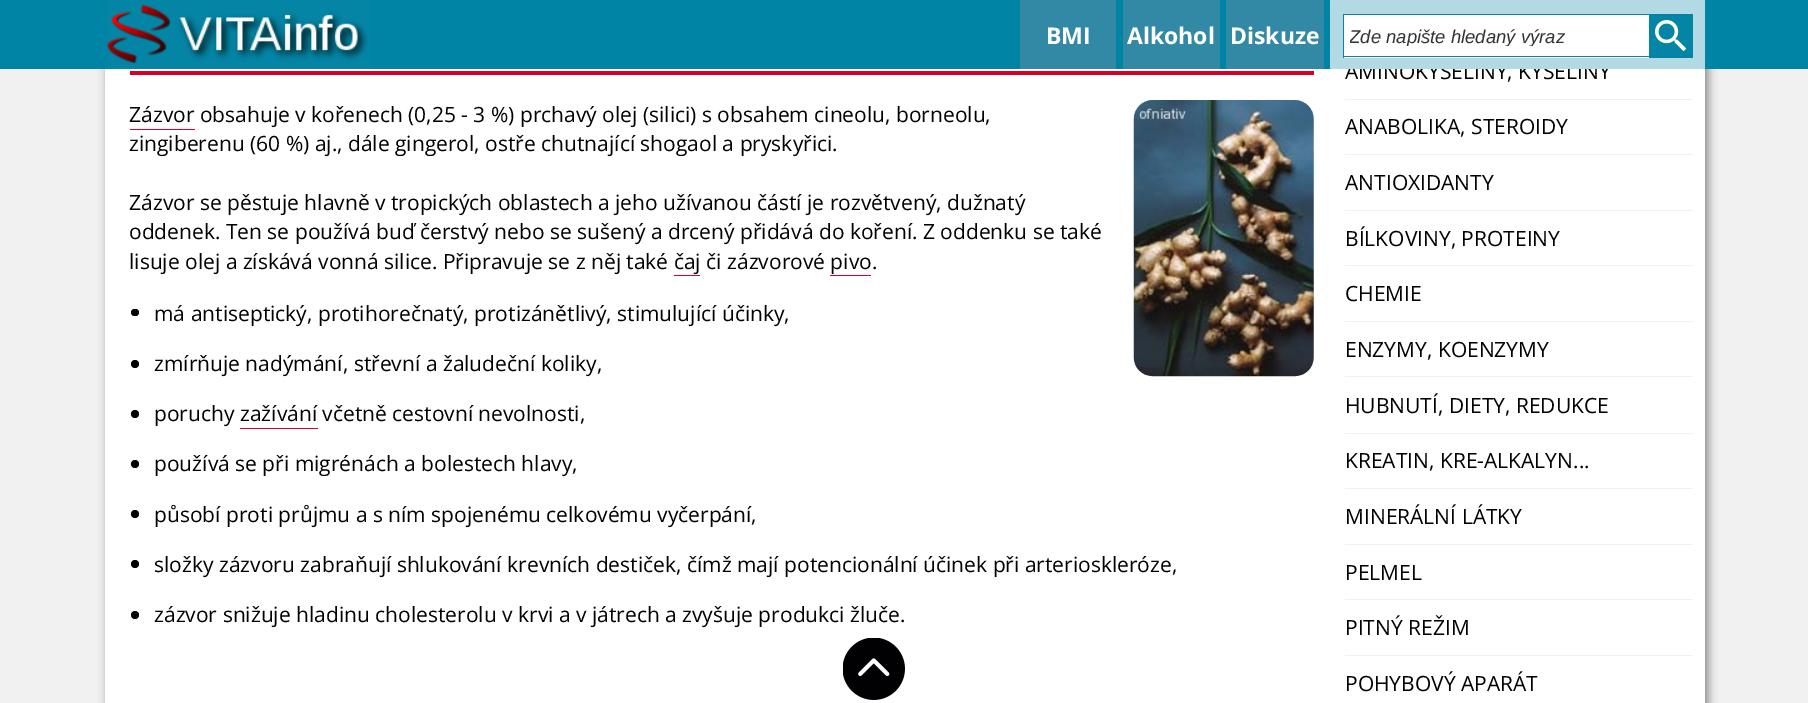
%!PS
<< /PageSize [1808 703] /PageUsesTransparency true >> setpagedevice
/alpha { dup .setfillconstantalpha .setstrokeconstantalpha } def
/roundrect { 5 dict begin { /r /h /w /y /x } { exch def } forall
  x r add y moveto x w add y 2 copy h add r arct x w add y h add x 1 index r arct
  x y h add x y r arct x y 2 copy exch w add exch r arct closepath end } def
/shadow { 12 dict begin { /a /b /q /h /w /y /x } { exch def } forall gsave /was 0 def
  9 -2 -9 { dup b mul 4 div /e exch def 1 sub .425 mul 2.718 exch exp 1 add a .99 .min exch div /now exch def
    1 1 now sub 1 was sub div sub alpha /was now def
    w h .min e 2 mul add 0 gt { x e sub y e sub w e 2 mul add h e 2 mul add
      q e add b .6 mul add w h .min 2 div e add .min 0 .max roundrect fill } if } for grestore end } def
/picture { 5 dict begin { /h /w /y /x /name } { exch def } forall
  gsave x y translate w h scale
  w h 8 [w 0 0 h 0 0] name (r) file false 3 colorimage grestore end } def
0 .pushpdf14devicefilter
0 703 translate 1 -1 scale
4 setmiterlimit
0.945 setgray
0 0 1808 703 rectfill
0.502 setgray
108 -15 1600 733 0 5 1 shadow
1 setgray
105 69 1600 634 rectfill
/OpenSans-Regular [21 0 0 -21 0 0] selectfont
0 setgray
1345 79 moveto (AMINOKYSELINY, KYSELINY) show
0 0.518 0.647 setrgbcolor
0 0 1808 69 rectfill
0.016 0.522 0.647 setrgbcolor
108 0 262 69 rectfill
(img1.rgb) 107 4 261 60 picture
0.192 0.537 0.651 setrgbcolor
1020 0 96 69 rectfill
/OpenSans-Bold [23 0 0 -23 0 0] selectfont
1 setgray
1046 44 moveto (BMI) show
0.192 0.537 0.651 setrgbcolor
1123 0 97 69 rectfill
1 setgray
1127 44 moveto (Alkohol) show
0.192 0.537 0.651 setrgbcolor
1226 0 98 69 rectfill
1 setgray
1230 44 moveto (Diskuze) show
0.702 0.855 0.894 setrgbcolor
1330 0 375 69 rectfill
1 setgray
1344 15 305 43 rectfill
0.016 0.522 0.647 setrgbcolor
1343 14 306 1 rectfill
1343 56 306 1 rectfill
1343 14 1 44 rectfill
gsave
1350 26 293 20 rectclip
/LiberationSans-Italic [18.5 0 0 -18.5 0 0] selectfont
0.2 setgray
1349 43 moveto (Zde napište hledaný výraz) show
grestore
1649 14 44 44 rectfill
(img2.rgb) 1655 20 31 31 picture
0.847 0 0.153 setrgbcolor
130 71 1184 4 rectfill
/OpenSans-Regular [21 0 0 -21 0 0] selectfont
0 setgray
129 122 moveto (Zázvor obsahuje v kořenech \(0,25 - 3 %\) prchavý olej \(silici\) s obsahem cineolu, borneolu,) show
0.847 0 0.153 setrgbcolor
130 129 65 1 rectfill
0 setgray
129 151 moveto (zingiberenu \(60 %\) aj., dále gingerol, ostře chutnající shogaol a pryskyřici.) show
(img3.rgb) 1133 100 181 277 picture
129 210 moveto (Zázvor se pěstuje hlavně v tropických oblastech a jeho užívanou částí je rozvětvený, dužnatý) show
129 239 moveto (oddenek. Ten se používá buď čerstvý nebo se sušený a drcený přidává do koření. Z oddenku se také) show
129 269 moveto (lisuje olej a získává vonná silice. Připravuje se z něj také čaj či zázvorové pivo.) show
0.847 0 0.153 setrgbcolor
674 275 26 1 rectfill
830 275 41 1 rectfill
0 setgray
131 309 8 7 3.5 roundrect fill
154 321 moveto (má antiseptický, protihorečnatý, protizánětlivý, stimulující účinky,) show
newpath 135 364 4 0 360 arc closepath fill
154 371 moveto (zmírňuje nadýmání, střevní a žaludeční koliky,) show
newpath 135 414 4 0 360 arc closepath fill
154 421 moveto (poruchy zažívání včetně cestovní nevolnosti,) show
0.847 0 0.153 setrgbcolor
240 428 78 1 rectfill
0 setgray
newpath 135 464 4 0 360 arc closepath fill
154 471 moveto (používá se při migrénách a bolestech hlavy,) show
newpath 135 514 4 0 360 arc closepath fill
154 522 moveto (působí proti průjmu a s ním spojenému celkovému vyčerpání,) show
newpath 135 564 4 0 360 arc closepath fill
154 572 moveto (složky zázvoru zabraňují shlukování krevních destiček, čímž mají potencionální účinek při arterioskleróze,) show
newpath 135 615 4 0 360 arc closepath fill
154 622 moveto (zázvor snižuje hladinu cholesterolu v krvi a v játrech a zvyšuje produkci žluče.) show
0.945 setgray
1345 99 348 1 rectfill
1345 154 348 1 rectfill
0 setgray
1345 134 moveto (ANABOLIKA, STEROIDY) show
0.945 setgray
1345 210 348 1 rectfill
0 setgray
1345 190 moveto (ANTIOXIDANTY) show
0.945 setgray
1345 265 348 1 rectfill
0 setgray
1345 246 moveto (BÍLKOVINY, PROTEINY) show
0.945 setgray
1345 321 348 1 rectfill
0 setgray
1345 301 moveto (CHEMIE) show
0.945 setgray
1345 376 348 1 rectfill
0 setgray
1345 357 moveto (ENZYMY, KOENZYMY) show
0.945 setgray
1345 433 348 1 rectfill
0 setgray
1345 413 moveto (HUBNUTÍ, DIETY, REDUKCE) show
0.945 setgray
1345 488 348 1 rectfill
0 setgray
1345 468 moveto (KREATIN, KRE-ALKALYN...) show
0.945 setgray
1345 544 348 1 rectfill
0 setgray
1345 524 moveto (MINERÁLNÍ LÁTKY) show
0.945 setgray
1345 599 348 1 rectfill
0 setgray
1345 580 moveto (PELMEL) show
0.945 setgray
1345 655 348 1 rectfill
0 setgray
1345 635 moveto (PITNÝ REŽIM) show
1345 691 moveto (POHYBOVÝ APARÁT) show
(img4.rgb) 843 638 62 62 picture
.poppdf14devicefilter showpage
